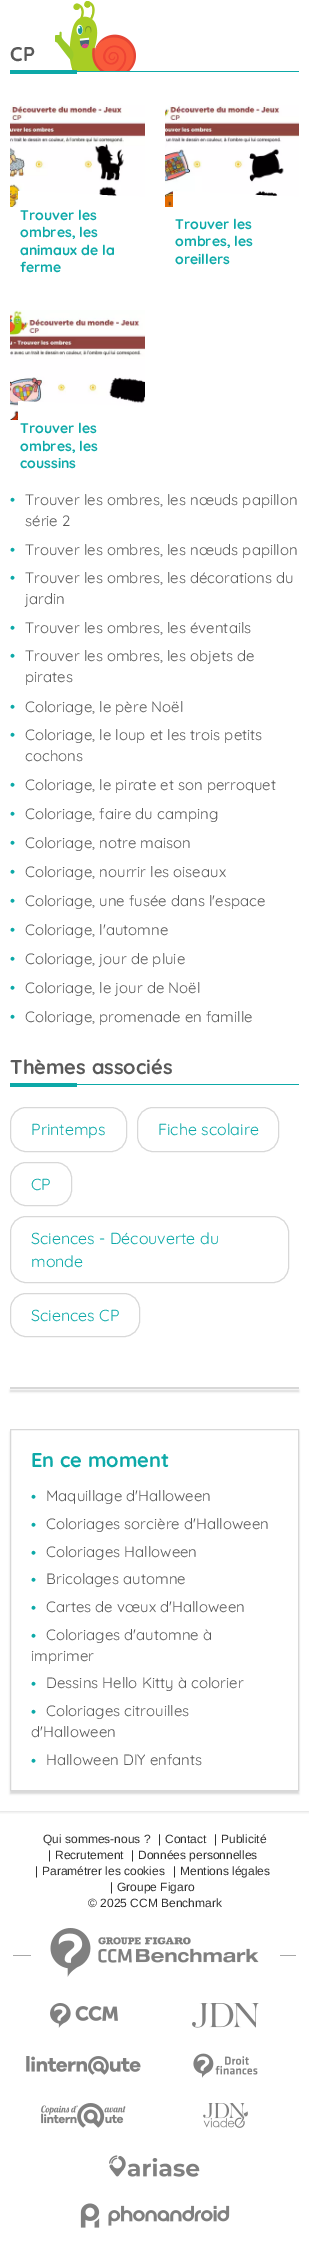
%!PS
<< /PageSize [309 2259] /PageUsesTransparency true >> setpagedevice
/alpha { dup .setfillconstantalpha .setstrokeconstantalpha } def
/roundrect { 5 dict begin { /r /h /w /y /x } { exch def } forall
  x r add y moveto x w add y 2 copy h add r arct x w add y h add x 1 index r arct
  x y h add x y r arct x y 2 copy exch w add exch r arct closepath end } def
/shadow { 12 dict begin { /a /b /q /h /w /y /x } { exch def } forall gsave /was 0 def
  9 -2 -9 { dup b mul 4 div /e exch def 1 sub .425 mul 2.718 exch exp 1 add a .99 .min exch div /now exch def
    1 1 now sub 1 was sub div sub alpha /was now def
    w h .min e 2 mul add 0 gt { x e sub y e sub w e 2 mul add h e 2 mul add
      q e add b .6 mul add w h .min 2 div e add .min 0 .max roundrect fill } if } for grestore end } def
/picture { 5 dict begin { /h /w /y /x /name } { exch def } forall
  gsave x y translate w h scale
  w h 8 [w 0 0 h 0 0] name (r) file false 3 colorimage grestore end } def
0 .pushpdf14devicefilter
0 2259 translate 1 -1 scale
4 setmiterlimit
1 setgray
0 0 309 2259 rectfill
gsave
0 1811 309 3 rectclip
0 setgray
0 -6 309 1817 0 2 0.2 shadow
grestore
/Quicksand-Bold [20 0 0 -20 0 0] selectfont
0.349 setgray
10 61 moveto (CP) show
(img1.rgb) 55 1 81 70 picture
0.051 0.663 0.659 setrgbcolor
10 70 67 4 rectfill
77 71 222 1 rectfill
(img2.rgb) 10 105 135 102 picture
gsave
10 191 135 28 rectclip
1 setgray
newpath 18 191 moveto 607 219 lineto 18 219 lineto fill
grestore
/Quicksand-Bold [14 0 0 -14 0 0] selectfont
20 220 moveto (Trouver les) show
20 237 moveto (ombres, les) show
20 255 moveto (animaux de la) show
20 272 moveto (ferme) show
(img3.rgb) 165 105 134 102 picture
gsave
165 191 134 28 rectclip
1 setgray
newpath 173 191 moveto 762 219 lineto 173 219 lineto fill
grestore
175 229 moveto (Trouver les) show
175 246 moveto (ombres, les) show
175 264 moveto (oreillers) show
(img4.rgb) 10 310 135 110 picture
gsave
10 401 135 28 rectclip
1 setgray
newpath 18 401 moveto 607 429 lineto 18 429 lineto fill
grestore
20 433 moveto (Trouver les) show
20 451 moveto (ombres, les) show
20 468 moveto (coussins) show
/Quicksand-Regular [15 0 0 -15 0 0] selectfont
10 505 moveto (•) show
0.349 setgray
25 505 moveto (Trouver les ombres, les nœuds papillon) show
25 526 moveto (série 2) show
0.051 0.663 0.659 setrgbcolor
10 555 moveto (•) show
0.349 setgray
25 555 moveto (Trouver les ombres, les nœuds papillon) show
0.051 0.663 0.659 setrgbcolor
10 583 moveto (•) show
0.349 setgray
25 583 moveto (Trouver les ombres, les décorations du) show
25 604 moveto (jardin) show
0.051 0.663 0.659 setrgbcolor
10 633 moveto (•) show
0.349 setgray
25 633 moveto (Trouver les ombres, les éventails) show
0.051 0.663 0.659 setrgbcolor
10 661 moveto (•) show
0.349 setgray
25 661 moveto (Trouver les ombres, les objets de) show
25 682 moveto (pirates) show
0.051 0.663 0.659 setrgbcolor
10 712 moveto (•) show
0.349 setgray
25 712 moveto (Coloriage, le père Noël) show
0.051 0.663 0.659 setrgbcolor
10 740 moveto (•) show
0.349 setgray
25 740 moveto (Coloriage, le loup et les trois petits) show
25 761 moveto (cochons) show
0.051 0.663 0.659 setrgbcolor
10 790 moveto (•) show
0.349 setgray
25 790 moveto (Coloriage, le pirate et son perroquet) show
0.051 0.663 0.659 setrgbcolor
10 819 moveto (•) show
0.349 setgray
25 819 moveto (Coloriage, faire du camping) show
0.051 0.663 0.659 setrgbcolor
10 848 moveto (•) show
0.349 setgray
25 848 moveto (Coloriage, notre maison) show
0.051 0.663 0.659 setrgbcolor
10 877 moveto (•) show
0.349 setgray
25 877 moveto (Coloriage, nourrir les oiseaux) show
0.051 0.663 0.659 setrgbcolor
10 906 moveto (•) show
0.349 setgray
25 906 moveto (Coloriage, une fusée dans l'espace) show
0.051 0.663 0.659 setrgbcolor
10 935 moveto (•) show
0.349 setgray
25 935 moveto (Coloriage, l'automne) show
0.051 0.663 0.659 setrgbcolor
10 964 moveto (•) show
0.349 setgray
25 964 moveto (Coloriage, jour de pluie) show
0.051 0.663 0.659 setrgbcolor
10 993 moveto (•) show
0.349 setgray
25 993 moveto (Coloriage, le jour de Noël) show
0.051 0.663 0.659 setrgbcolor
10 1022 moveto (•) show
0.349 setgray
25 1022 moveto (Coloriage, promenade en famille) show
/Quicksand-Bold [20 0 0 -20 0 0] selectfont
10 1074 moveto (Thèmes associés) show
0.051 0.663 0.659 setrgbcolor
10 1083 67 4 rectfill
77 1084 222 1 rectfill
0.847 setgray
10.5 1107.5 116 44 15.5 roundrect stroke
/Quicksand-Regular [16 0 0 -16 0 0] selectfont
0.051 0.663 0.659 setrgbcolor
31 1135 moveto (Printemps) show
0.847 setgray
137.5 1107.5 141 44 15.5 roundrect stroke
0.051 0.663 0.659 setrgbcolor
158 1135 moveto (Fiche scolaire) show
0.847 setgray
10.5 1162.5 61 43 15.5 roundrect stroke
0.051 0.663 0.659 setrgbcolor
31 1190 moveto (CP) show
0.847 setgray
10.5 1216.5 278 66 15.5 roundrect stroke
0.051 0.663 0.659 setrgbcolor
31 1244 moveto (Sciences - Découverte du) show
31 1267 moveto (monde) show
0.847 setgray
10.5 1293.5 129 43 15.5 roundrect stroke
0.051 0.663 0.659 setrgbcolor
31 1321 moveto (Sciences CP) show
0.847 setgray
10 1390 289 2 0 1 1 shadow
10 1387 289 2 rectfill
gsave
newpath 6 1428 moveto 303 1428 lineto 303 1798 lineto 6 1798 lineto closepath 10 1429 moveto 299 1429 lineto 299 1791 lineto 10 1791 lineto closepath eoclip newpath
10 1432 289 362 0 1 1 shadow
grestore
10.5 1429.5 288 361 rectstroke
/Quicksand-Bold [20 0 0 -20 0 0] selectfont
0.051 0.663 0.659 setrgbcolor
31 1467 moveto (En ce moment) show
/Quicksand-Regular [15 0 0 -15 0 0] selectfont
31 1502 moveto (•) show
0.349 setgray
46 1501 moveto (Maquillage d'Halloween) show
0.051 0.663 0.659 setrgbcolor
31 1530 moveto (•) show
0.349 setgray
46 1529 moveto (Coloriages sorcière d'Halloween) show
0.051 0.663 0.659 setrgbcolor
31 1558 moveto (•) show
0.349 setgray
46 1557 moveto (Coloriages Halloween) show
0.051 0.663 0.659 setrgbcolor
31 1585 moveto (•) show
0.349 setgray
46 1584 moveto (Bricolages automne) show
0.051 0.663 0.659 setrgbcolor
31 1613 moveto (•) show
0.349 setgray
46 1612 moveto (Cartes de vœux d'Halloween) show
0.051 0.663 0.659 setrgbcolor
31 1641 moveto (•) show
0.349 setgray
46 1640 moveto (Coloriages d'automne à) show
31 1661 moveto (imprimer) show
0.051 0.663 0.659 setrgbcolor
31 1689 moveto (•) show
0.349 setgray
46 1688 moveto (Dessins Hello Kitty à colorier) show
0.051 0.663 0.659 setrgbcolor
31 1717 moveto (•) show
0.349 setgray
46 1716 moveto (Coloriages citrouilles) show
31 1737 moveto (d'Halloween) show
0.051 0.663 0.659 setrgbcolor
31 1766 moveto (•) show
0.349 setgray
46 1765 moveto (Halloween DIY enfants) show
/LiberationSans-Regular [12 0 0 -12 0 0] selectfont
0.188 setgray
43 1843 moveto (Qui sommes-nous ?) show
158 1843 moveto (|) show
165 1843 moveto (Contact) show
214 1843 moveto (|) show
221 1843 moveto (Publicité) show
48 1859 moveto (|) show
55 1859 moveto (Recrutement) show
131 1859 moveto (|) show
138 1859 moveto (Données personnelles) show
35 1875 moveto (|) show
42 1875 moveto (Paramétrer les cookies) show
173 1875 moveto (|) show
180 1875 moveto (Mentions légales) show
110 1891 moveto (|) show
117 1891 moveto (Groupe Figaro) show
88 1907 moveto (© 2025 CCM Benchmark) show
0.659 setgray
13 1955 283 1 rectfill
1 setgray
31 1955 249 1 rectfill
(img5.rgb) 50 1928 209 49 picture
(img6.rgb) 50 2003 68 25 picture
(img7.rgb) 192 2003 67 25 picture
(img8.rgb) 26 2056 115 19 picture
(img9.rgb) 193 2053 65 25 picture
(img10.rgb) 41 2103 85 25 picture
(img11.rgb) 203 2103 45 25 picture
(img12.rgb) 109 2155 91 22 picture
(img13.rgb) 80 2203 150 25 picture
.poppdf14devicefilter showpage
